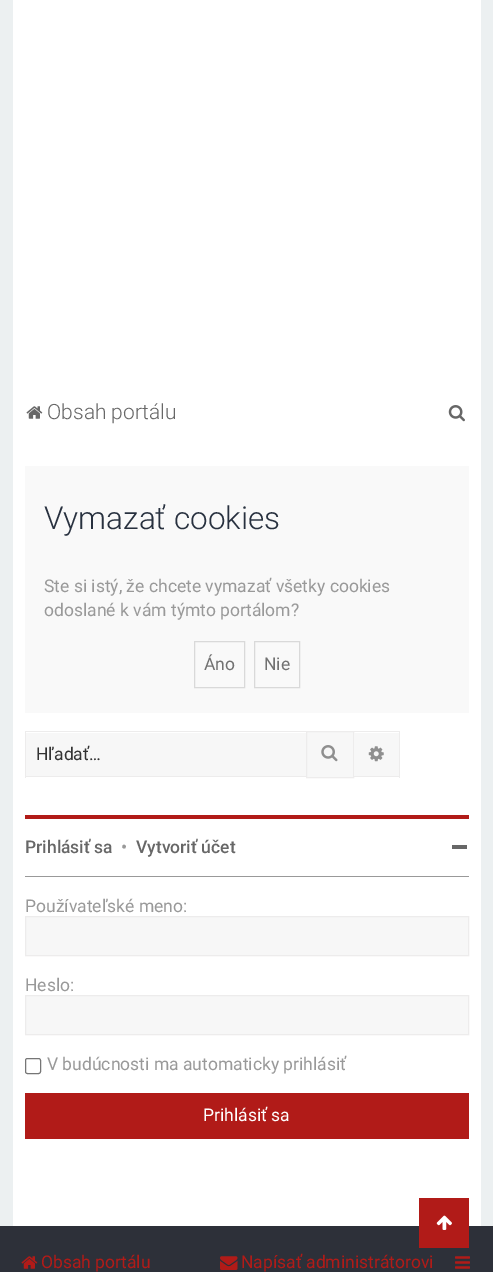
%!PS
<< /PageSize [493 1272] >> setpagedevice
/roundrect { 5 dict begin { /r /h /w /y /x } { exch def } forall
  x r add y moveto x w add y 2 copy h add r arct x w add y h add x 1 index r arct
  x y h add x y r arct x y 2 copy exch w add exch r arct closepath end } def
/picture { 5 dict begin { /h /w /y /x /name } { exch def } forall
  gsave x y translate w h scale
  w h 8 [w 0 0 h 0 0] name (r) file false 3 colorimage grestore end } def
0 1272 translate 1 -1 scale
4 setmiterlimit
0.925 0.941 0.945 setrgbcolor
0 0 493 1272 rectfill
1 setgray
13 0 468 1226 rectfill
(img1.rgb) 26 406 17 13 picture
/Roboto-Light [21 0 0 -21 0 0] selectfont
0.404 setgray
47 419 moveto (Obsah portálu) show
(img2.rgb) 448 405 17 17 picture
0.976 setgray
25 466 444 247 rectfill
/Roboto-Light [31.5 0 0 -31.5 0 0] selectfont
0.157 0.192 0.247 setrgbcolor
44 529 moveto (Vymazať cookies) show
/Roboto-Regular [17.5 0 0 -17.5 0 0] selectfont
0.6 setgray
44 592 moveto (Ste si istý, že chcete vymazať všetky cookies) show
44 616 moveto (odoslané k vám týmto portálom?) show
0.851 setgray
194.5 641.5 50 46 rectstroke
0.443 setgray
204 670 moveto (Áno) show
0.851 setgray
254.5 641.5 45 46 rectstroke
0.443 setgray
264 670 moveto (Nie) show
0.969 setgray
26 733 280 43 rectfill
0.929 0.925 0.925 setrgbcolor
25 731 281 1 rectfill
25 776 281 1 rectfill
25 731 1 47 rectfill
0.2 setgray
36 760 moveto (Hľadať…) show
0.969 setgray
newpath 306.5 731.5 moveto 353.5 731.5 lineto 353.5 777.5 lineto 306.5 777.5 lineto closepath gsave fill grestore
0.929 0.925 0.925 setrgbcolor
stroke
(img3.rgb) 321 745 17 17 picture
0.969 setgray
354 733 45 43 rectfill
0.929 0.925 0.925 setrgbcolor
354 731 46 1 rectfill
399 731 1 47 rectfill
354 776 46 1 rectfill
(img4.rgb) 368 746 16 16 picture
0.694 0.106 0.094 setrgbcolor
25 815 444 4 rectfill
/Roboto-Medium [17.5 0 0 -17.5 0 0] selectfont
0.404 setgray
25 853 moveto (Prihlásiť sa) show
0.6 setgray
121 853 moveto (•) show
0.404 setgray
136 853 moveto (Vytvoriť účet) show
452 845 15 4 rectfill
0.6 setgray
25 876 444 1 rectfill
/Roboto-Regular [17.5 0 0 -17.5 0 0] selectfont
25 912 moveto (Používateľské meno:) show
0.969 setgray
newpath 25.5 916.5 moveto 468.5 916.5 lineto 468.5 955.5 lineto 25.5 955.5 lineto closepath gsave fill grestore
0.929 0.925 0.925 setrgbcolor
stroke
0.6 setgray
25 991 moveto (Heslo:) show
0.969 setgray
newpath 25.5 995.5 moveto 468.5 995.5 lineto 468.5 1034.5 lineto 25.5 1034.5 lineto closepath gsave fill grestore
0.929 0.925 0.925 setrgbcolor
stroke
0.463 setgray
25.5 1058.5 15 15 2 roundrect stroke
0.6 setgray
47 1070 moveto (V budúcnosti ma automaticky prihlásiť) show
0.694 0.106 0.094 setrgbcolor
25 1093 444 46 rectfill
1 setgray
203 1121 moveto (Prihlásiť sa) show
0.176 0.188 0.224 setrgbcolor
0 1226 493 46 rectfill
(img5.rgb) 21 1256 17 13 picture
0.694 0.106 0.094 setrgbcolor
41 1268 moveto (Obsah portálu) show
(img6.rgb) 220 1256 18 14 picture
241 1268 moveto (Napísať administrátorovi) show
(img7.rgb) 455 1256 15 13 picture
419 1198 50 50 rectfill
(img8.rgb) 436 1215 16 15 picture
showpage
